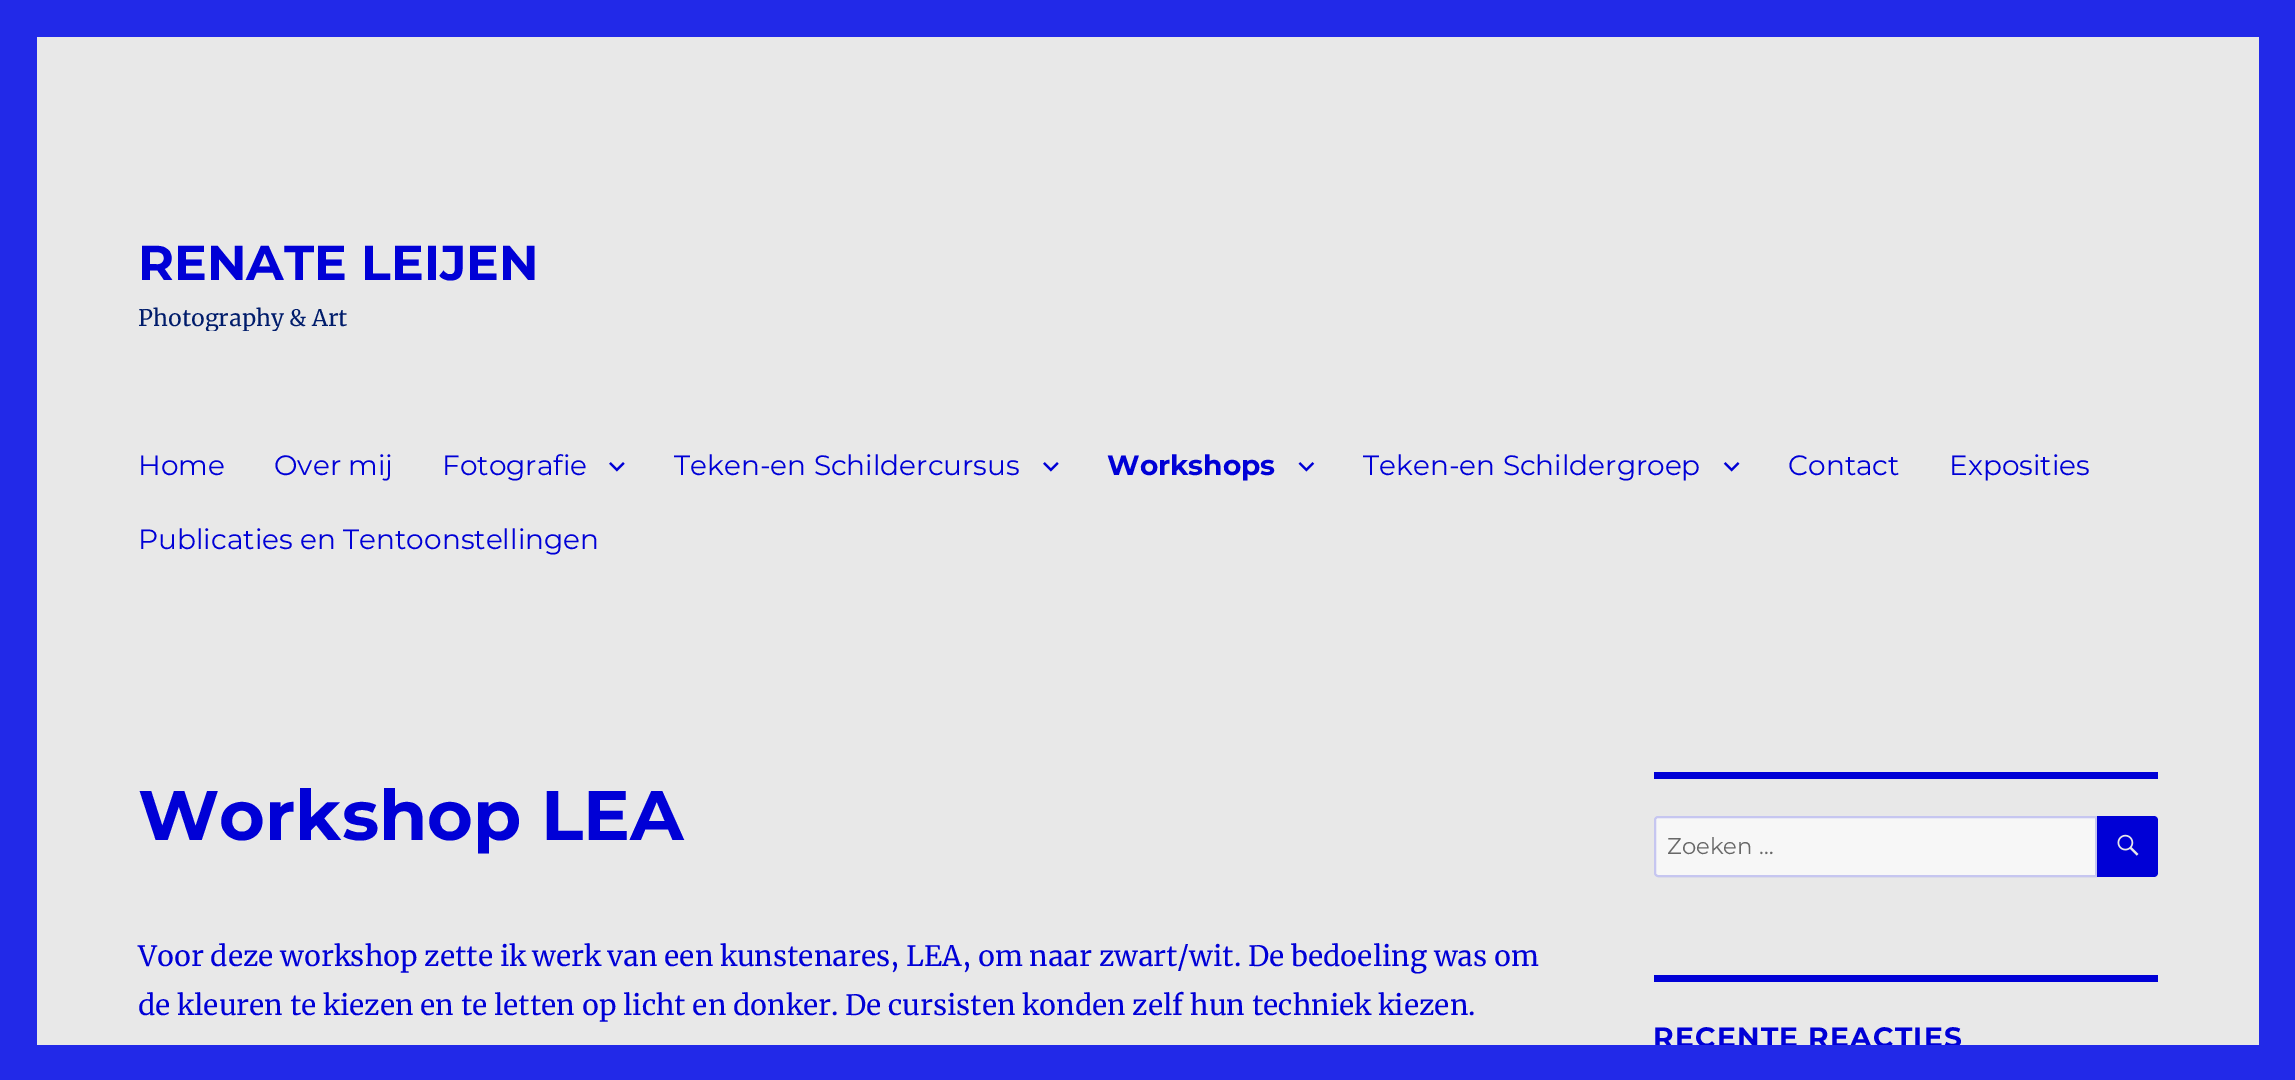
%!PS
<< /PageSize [2295 1080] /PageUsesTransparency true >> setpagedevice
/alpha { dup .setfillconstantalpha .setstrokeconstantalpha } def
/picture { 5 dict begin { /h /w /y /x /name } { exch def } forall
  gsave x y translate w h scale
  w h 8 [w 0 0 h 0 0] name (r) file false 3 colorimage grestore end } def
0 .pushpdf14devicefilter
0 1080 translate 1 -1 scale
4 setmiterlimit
0.133 0.161 0.91 setrgbcolor
0 0 2295 1080 rectfill
0.91 setgray
37 37 2222 1008 rectfill
/Montserrat-Thin [49 0 0 -49 0 0] selectfont
0 0 0.839 setrgbcolor
138 280 moveto (RENATE LEIJEN) show
gsave
138 233 401 98 rectclip
/Merriweather-Regular [22.75 0 0 -22.75 0 0] selectfont
0 0.11 0.42 setrgbcolor
138 326 moveto (Photography & Art) show
grestore
/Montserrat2-Thin [28 0 0 -28 0 0] selectfont
138 475 moveto (Home) show
274 475 moveto (Over mij) show
442 475 moveto (Fotografie) show
(img1.rgb) 609 462 16 10 picture
674 475 moveto (Teken-en Schildercursus) show
(img1.rgb) 1043 462 16 10 picture
/Montserrat-Thin [28 0 0 -28 0 0] selectfont
1107 475 moveto (Workshops) show
(img2.rgb) 1298 462 17 10 picture
/Montserrat2-Thin [28 0 0 -28 0 0] selectfont
1363 475 moveto (Teken-en Schildergroep) show
(img3.rgb) 1723 462 17 10 picture
1788 475 moveto (Contact) show
1949 475 moveto (Exposities) show
138 549 moveto (Publicaties en Tentoonstellingen) show
/Montserrat-Thin [70 0 0 -70 0 0] selectfont
138 840 moveto (Workshop LEA) show
/Merriweather-Regular [28 0 0 -28 0 0] selectfont
138 966 moveto (Voor deze workshop zette ik werk van een kunstenares, LEA, om naar zwart/wit. De bedoeling was om) show
138 1015 moveto (de kleuren te kiezen en te letten op licht en donker. De cursisten konden zelf hun techniek kiezen.) show
1654 772 504 7 rectfill
0.969 setgray
newpath 1658 816 moveto 2097 816 lineto 2097 877 lineto 1658 877 lineto 1656 877 1654 875 1654 873 curveto 1654 820 lineto 1654 818 1656 816 1658 816 curveto closepath fill
0.2 alpha
0 0 0.839 setrgbcolor
2 setlinewidth
newpath 1658 817 moveto 2096 817 lineto 2096 876 lineto 1658 876 lineto 1656.5 876 1655 874.5 1655 873 curveto 1655 820 lineto 1655 818.5 1656.5 817 1658 817 curveto closepath stroke
/Montserrat2-Thin [22.75 0 0 -22.75 0 0] selectfont
1 alpha
0.408 setgray
1667 854 moveto (Zoeken …) show
0 0 0.839 setrgbcolor
newpath 2097 816 moveto 2154 816 lineto 2156 816 2158 818 2158 820 curveto 2158 873 lineto 2158 875 2156 877 2154 877 curveto 2097 877 lineto closepath fill
(img4.rgb) 2117 834 22 22 picture
1654 975 504 7 rectfill
/Montserrat-Thin [28 0 0 -28 0 0] selectfont
1653 1047 moveto 1.25 0 (RECENTE REACTIES) ashow
0.133 0.161 0.91 setrgbcolor
1655 1045 305 3 rectfill
.poppdf14devicefilter showpage
